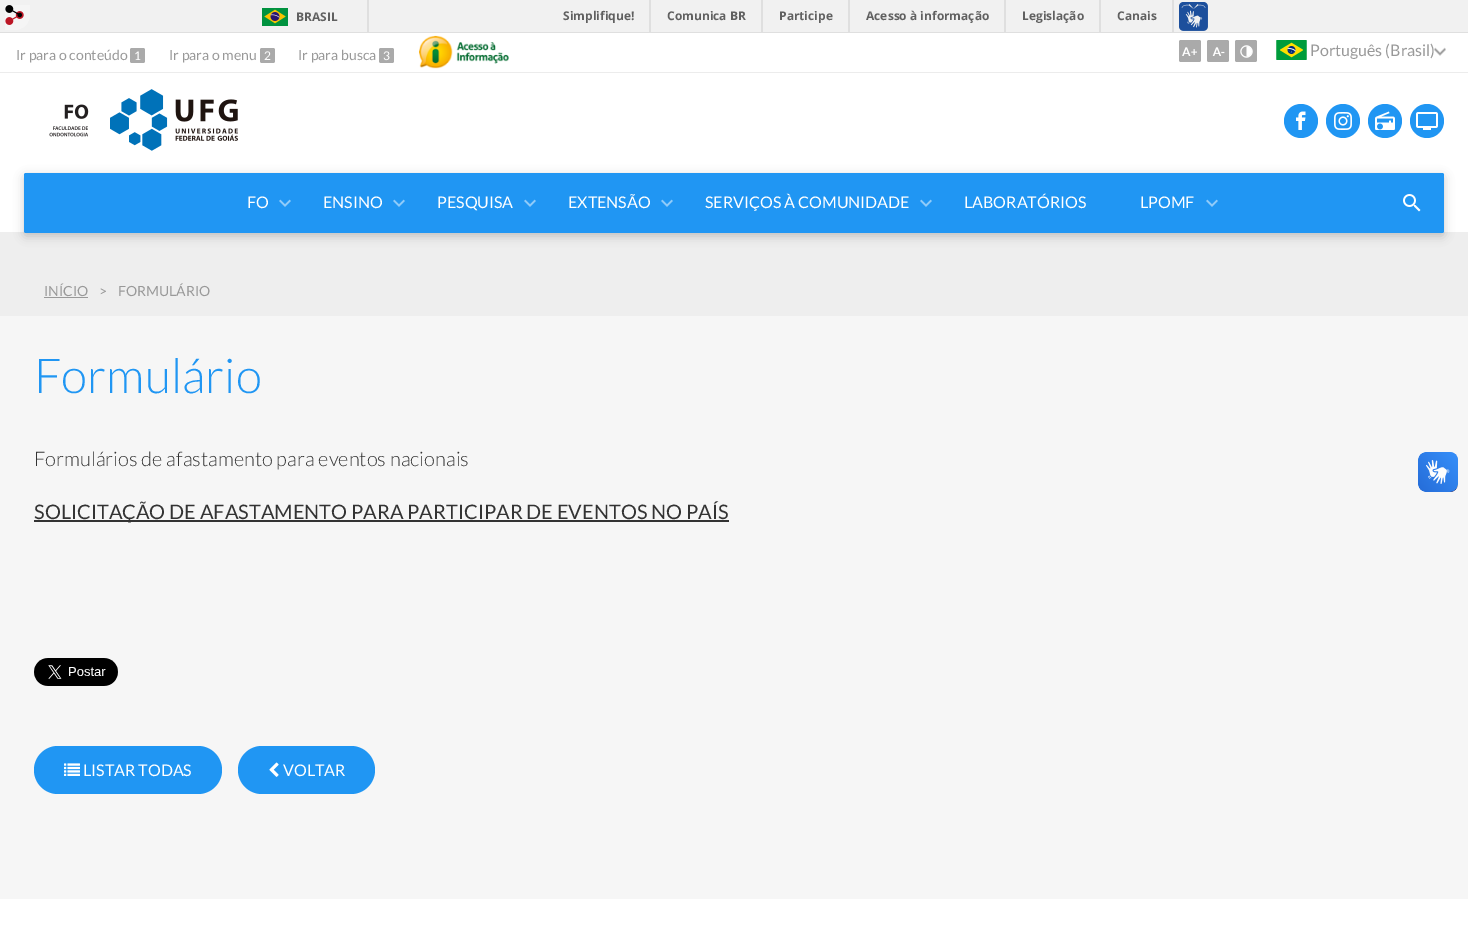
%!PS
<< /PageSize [1468 943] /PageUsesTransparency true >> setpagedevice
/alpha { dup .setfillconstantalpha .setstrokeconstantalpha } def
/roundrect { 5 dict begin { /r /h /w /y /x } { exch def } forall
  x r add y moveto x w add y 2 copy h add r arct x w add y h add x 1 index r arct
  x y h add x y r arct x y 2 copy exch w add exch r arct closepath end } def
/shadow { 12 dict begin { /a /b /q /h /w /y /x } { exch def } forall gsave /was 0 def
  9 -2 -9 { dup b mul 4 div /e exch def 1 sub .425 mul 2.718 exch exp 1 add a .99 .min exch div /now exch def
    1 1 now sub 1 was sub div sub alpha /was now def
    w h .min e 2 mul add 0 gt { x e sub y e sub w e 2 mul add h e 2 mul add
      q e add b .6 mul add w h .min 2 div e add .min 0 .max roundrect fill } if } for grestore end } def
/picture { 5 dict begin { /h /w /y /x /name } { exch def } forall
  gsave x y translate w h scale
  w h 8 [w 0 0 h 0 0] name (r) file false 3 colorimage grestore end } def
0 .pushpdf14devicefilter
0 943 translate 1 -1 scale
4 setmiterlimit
0.965 setgray
0 0 1468 943 rectfill
0.945 setgray
0 0 1468 32 rectfill
(img1.rgb) 5 5 25 25 picture
0.875 setgray
0 32 1468 1 rectfill
367 0 2 32 rectfill
(img2.rgb) 262 8 26 18 picture
/OpenSans-Bold [12 0 0 -12 0 0] selectfont
0.376 setgray
296 21 moveto (BRASIL) show
0.875 setgray
649 0 2 32 rectfill
0.376 setgray
563 20 moveto (Simplifique!) show
0.875 setgray
761 0 2 32 rectfill
0.376 setgray
667 20 moveto (Comunica BR) show
0.875 setgray
848 0 2 32 rectfill
0.376 setgray
779 20 moveto (Participe) show
0.875 setgray
1004 0 2 32 rectfill
0.376 setgray
866 20 moveto (Acesso à informação) show
0.875 setgray
1099 0 2 32 rectfill
0.376 setgray
1022 20 moveto (Legislação) show
0.875 setgray
1172 0 2 32 rectfill
0.376 setgray
1117 20 moveto (Canais) show
(img3.rgb) 1179 2 29 29 picture
1 setgray
0 33 1468 39 rectfill
0.925 setgray
0 72 1468 1 rectfill
/Lato-Regular [14 0 0 -14 0 0] selectfont
0.6 setgray
16 60 moveto (Ir para o conteúdo) show
0.667 setgray
130 48 15 15 2 roundrect fill
/Lato-Regular [12 0 0 -12 0 0] selectfont
1 setgray
134 60 moveto (1) show
/Lato-Regular [14 0 0 -14 0 0] selectfont
0.6 setgray
169 60 moveto (Ir para o menu) show
0.667 setgray
260 48 15 15 2 roundrect fill
/Lato-Regular [12 0 0 -12 0 0] selectfont
1 setgray
264 60 moveto (2) show
/Lato-Regular [14 0 0 -14 0 0] selectfont
0.6 setgray
298 60 moveto (Ir para busca) show
0.667 setgray
379 48 15 15 2 roundrect fill
/Lato-Regular [12 0 0 -12 0 0] selectfont
1 setgray
383 60 moveto (3) show
(img4.rgb) 419 35 90 34 picture
0.667 setgray
1179 40 22 22 2 roundrect fill
(img5.rgb) 1182 47 15 9 picture
1207 40 22 22 2 roundrect fill
(img6.rgb) 1212 47 13 9 picture
1235 40 22 22 2 roundrect fill
(img7.rgb) 1240 45 13 13 picture
(img8.rgb) 1434 47 12 9 picture
(img9.rgb) 1276 40 31 20 picture
/Lato-Regular [16 0 0 -16 0 0] selectfont
0.6 setgray
1310 56 moveto (Português \(Brasil\)) show
1 setgray
0 73 1468 159 rectfill
(img10.rgb) 49 104 40 33 picture
(img11.rgb) 110 89 128 62 picture
0.125 0.588 0.953 setrgbcolor
newpath 1301 121 17 0 360 arc closepath fill
(img12.rgb) 1296 111 10 19 picture
newpath 1343 121 17 0 360 arc closepath fill
(img13.rgb) 1334 112 18 18 picture
newpath 1385 121 17 0 360 arc closepath fill
(img14.rgb) 1375 111 20 19 picture
newpath 1427 121 17 0 360 arc closepath fill
(img15.rgb) 1416 112 22 18 picture
0.933 setgray
0 232 1468 84 rectfill
0 setgray
24 176 1420 60 2 5 0.2 shadow
0.125 0.588 0.953 setrgbcolor
24 173 1420 60 2 roundrect fill
1 setgray
247 208 moveto (FO) show
(img16.rgb) 279 199 12 8 picture
323 208 moveto (ENSINO) show
(img16.rgb) 393 199 12 8 picture
437 208 moveto (PESQUISA) show
(img16.rgb) 524 199 12 8 picture
568 208 moveto (EXTENSÃO) show
(img16.rgb) 661 199 12 8 picture
705 208 moveto (SERVIÇOS À COMUNIDADE) show
(img16.rgb) 920 199 12 8 picture
964 208 moveto (LABORATÓRIOS) show
1140 208 moveto (LPOMF) show
(img16.rgb) 1206 199 12 8 picture
(img17.rgb) 1403 194 18 18 picture
/Lato-Regular [14 0 0 -14 0 0] selectfont
0.6 setgray
44 296 moveto (INÍCIO) show
44 297 44 1 rectfill
99 296 moveto (>) show
118 296 moveto (FORMULÁRIO) show
/Lato-Light [48 0 0 -48 0 0] selectfont
0.125 0.588 0.953 setrgbcolor
34 393 moveto (Formulário) show
/Lato-Light [20 0 0 -20 0 0] selectfont
0.2 setgray
34 466 moveto (Formulários de afastamento para eventos nacionais) show
34 520 695 2 rectfill
/Lato-Regular [20 0 0 -20 0 0] selectfont
34 519 moveto (SOLICITAÇÃO DE AFASTAMENTO PARA PARTICIPAR DE EVENTOS NO PAÍS) show
(img18.rgb) 34 658 84 28 picture
0.125 0.588 0.953 setrgbcolor
34 746 188 48 24 roundrect fill
(img19.rgb) 64 763 16 13 picture
/Lato-Regular [16 0 0 -16 0 0] selectfont
1 setgray
83 776 moveto (LISTAR TODAS) show
0.125 0.588 0.953 setrgbcolor
238 746 137 48 24 roundrect fill
(img20.rgb) 269 762 10 15 picture
1 setgray
283 776 moveto (VOLTAR) show
(img21.rgb) 1418 452 40 40 picture
(img22.rgb) 1418 452 40 40 picture
0 899 1468 44 rectfill
.poppdf14devicefilter showpage
